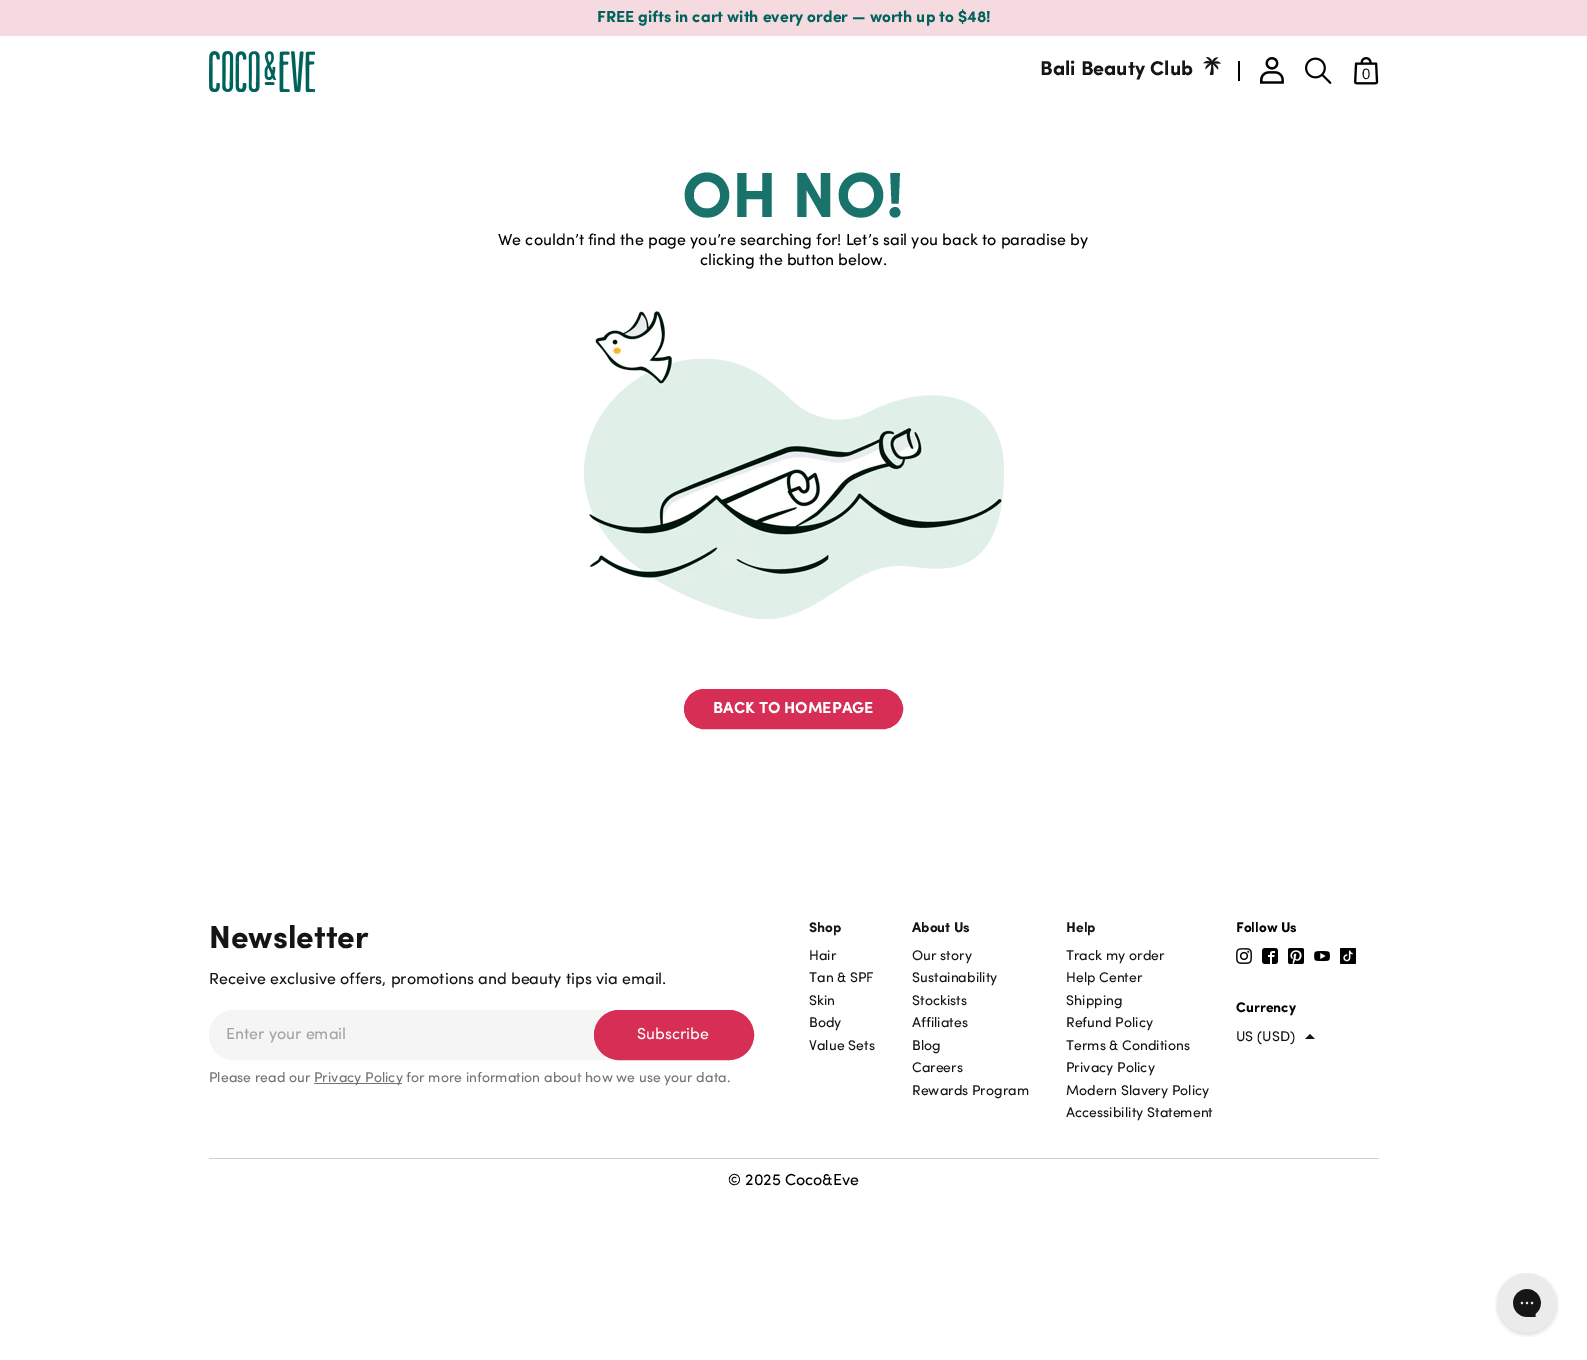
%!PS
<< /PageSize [1587 1360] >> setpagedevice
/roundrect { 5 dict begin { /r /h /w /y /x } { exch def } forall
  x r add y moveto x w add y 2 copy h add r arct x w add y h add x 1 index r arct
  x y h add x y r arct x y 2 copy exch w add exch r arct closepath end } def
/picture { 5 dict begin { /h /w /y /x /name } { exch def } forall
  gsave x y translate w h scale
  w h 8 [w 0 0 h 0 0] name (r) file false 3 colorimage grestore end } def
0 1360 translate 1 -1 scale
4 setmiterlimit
1 setgray
0 0 1587 1360 rectfill
0.961 0.855 0.875 setrgbcolor
0 0 1587 36 rectfill
/Sofia-Bold [16 0 0 -16 0 0] selectfont
0 0.388 0.357 setrgbcolor
597 22 moveto (FREE gifts in cart with every order — worth up to $48!) show
(img1.rgb) 209 51 106 41 picture
/Sofia-Bold [20 0 0 -20 0 0] selectfont
0.082 setgray
1040 75 moveto (Bali Beauty Club) show
(img2.rgb) 1203 57 18 18 picture
0 setgray
1238 61 2 20 rectfill
(img3.rgb) 1260 57 24 27 picture
(img4.rgb) 1305 57 27 27 picture
(img5.rgb) 1354 57 25 28 picture
/LiberationSans-Regular [15 0 0 -15 0 0] selectfont
0.082 setgray
1362 79 moveto (0) show
/Sofia-Bold [64 0 0 -64 0 0] selectfont
0.102 0.451 0.416 setrgbcolor
682 217 moveto (OH NO!) show
/Sofia-Regular [16 0 0 -16 0 0] selectfont
0 setgray
498 245 moveto (We couldn’t find the page you’re searching for! Let’s sail you back to paradise by) show
700 265 moveto (clicking the button below.) show
(img6.rgb) 584 311 420 308 picture
0.839 0.18 0.333 setrgbcolor
684.5 689.5 218 39 19.5 roundrect gsave fill grestore
stroke
/Sofia-Bold [16 0 0 -16 0 0] selectfont
1 setgray
713 713 moveto (BACK TO HOMEPAGE) show
/Sofia-Bold [32 0 0 -32 0 0] selectfont
0.082 setgray
209 948 moveto (Newsletter) show
/Sofia-Regular [16 0 0 -16 0 0] selectfont
209 984 moveto (Receive exclusive offers, promotions and beauty tips via email.) show
0.961 setgray
newpath 234 1010.5 moveto 604.5 1010.5 lineto 604.5 1059.5 lineto 234 1059.5 lineto 220.5 1059.5 209.5 1048.5 209.5 1035 curveto 209.5 1021.5 220.5 1010.5 234 1010.5 curveto closepath gsave fill grestore
stroke
0.639 setgray
226 1039 moveto (Enter your email) show
0.839 0.18 0.333 setrgbcolor
594.5 1010.5 159 49 24.5 roundrect gsave fill grestore
stroke
1 setgray
637 1039 moveto (Subscribe) show
/Sofia-Regular [14 0 0 -14 0 0] selectfont
0.451 setgray
209 1082 moveto (Please read our) show
314 1083 88 1 rectfill
314 1082 moveto (Privacy Policy for more information about how we use your data.) show
/Sofia-Bold [14 0 0 -14 0 0] selectfont
0.082 setgray
809 932 moveto (Shop) show
/Sofia-Regular [14 0 0 -14 0 0] selectfont
809 960 moveto (Hair) show
809 982 moveto (Tan & SPF) show
809 1005 moveto (Skin) show
809 1027 moveto (Body) show
809 1050 moveto (Value Sets) show
/Sofia-Bold [14 0 0 -14 0 0] selectfont
912 932 moveto (About Us) show
/Sofia-Regular [14 0 0 -14 0 0] selectfont
912 960 moveto (Our story) show
912 982 moveto (Sustainability) show
912 1005 moveto (Stockists) show
912 1027 moveto (Affiliates) show
912 1050 moveto (Blog) show
912 1072 moveto (Careers) show
912 1095 moveto (Rewards Program) show
/Sofia-Bold [14 0 0 -14 0 0] selectfont
1066 932 moveto (Help) show
/Sofia-Regular [14 0 0 -14 0 0] selectfont
1066 960 moveto (Track my order) show
1066 982 moveto (Help Center) show
1066 1005 moveto (Shipping) show
1066 1027 moveto (Refund Policy) show
1066 1050 moveto (Terms & Conditions) show
1066 1072 moveto (Privacy Policy) show
1066 1095 moveto (Modern Slavery Policy) show
1066 1117 moveto (Accessibility Statement) show
/Sofia-Bold [14 0 0 -14 0 0] selectfont
0 setgray
1236 932 moveto (Follow Us) show
(img7.rgb) 1236 948 16 16 picture
(img8.rgb) 1262 948 16 16 picture
(img9.rgb) 1288 948 16 16 picture
(img10.rgb) 1314 951 16 11 picture
(img11.rgb) 1340 948 16 16 picture
1236 1012 moveto (Currency) show
/Sofia-Regular [14 0 0 -14 0 0] selectfont
0.082 setgray
1236 1041 moveto (US \(USD\)) show
newpath 1315 1039 moveto 1305 1039 lineto 1310 1034 lineto closepath fill
0.816 setgray
209 1158 1170 1 rectfill
/Sofia-Regular [16 0 0 -16 0 0] selectfont
0 setgray
728 1185 moveto (© 2025 Coco&Eve) show
(img12.rgb) 1495 1273 64 64 picture
showpage
